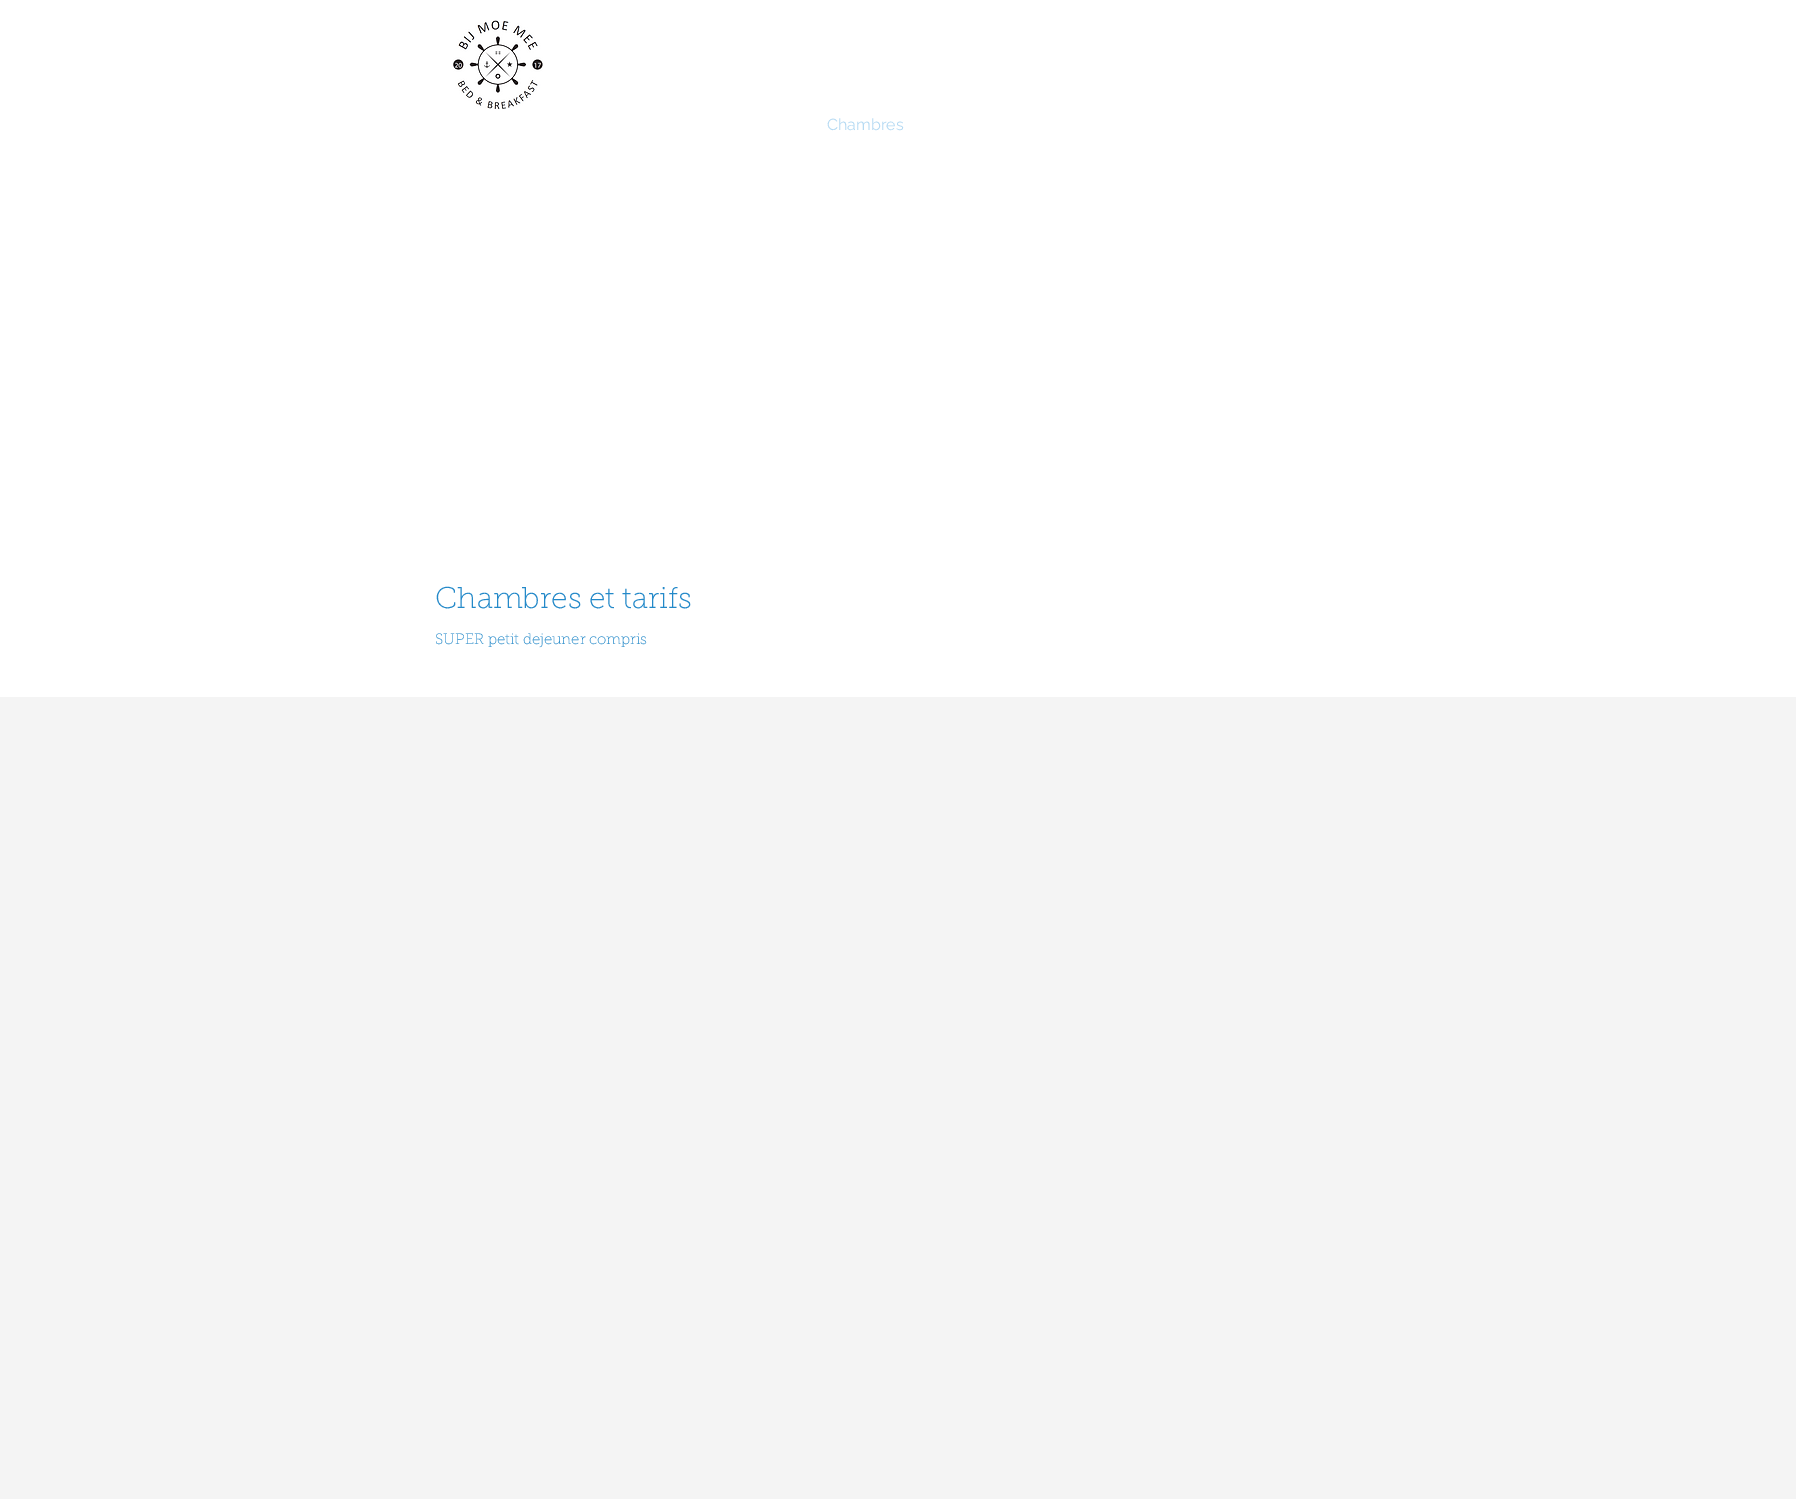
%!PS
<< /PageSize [1796 1499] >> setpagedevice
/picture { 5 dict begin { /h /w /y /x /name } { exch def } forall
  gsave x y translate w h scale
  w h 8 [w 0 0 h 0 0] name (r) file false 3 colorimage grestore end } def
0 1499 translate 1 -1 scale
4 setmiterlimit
1 setgray
0 0 1796 1499 rectfill
(img1.rgb) 453 20 90 90 picture
/Raleway-Regular [16 0 0 -16 0 0] selectfont
0.71 0.855 0.953 setrgbcolor
827 130 moveto (Chambres) show
/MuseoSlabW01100-Thin [30 0 0 -30 0 0] selectfont
0.137 0.537 0.788 setrgbcolor
435 608 moveto (Chambres et tarifs) show
/MuseoSlabW01100-Thin [15 0 0 -15 0 0] selectfont
435 644 moveto (SUPER petit dejeuner compris) show
0.957 setgray
0 697 1796 802 rectfill
showpage
